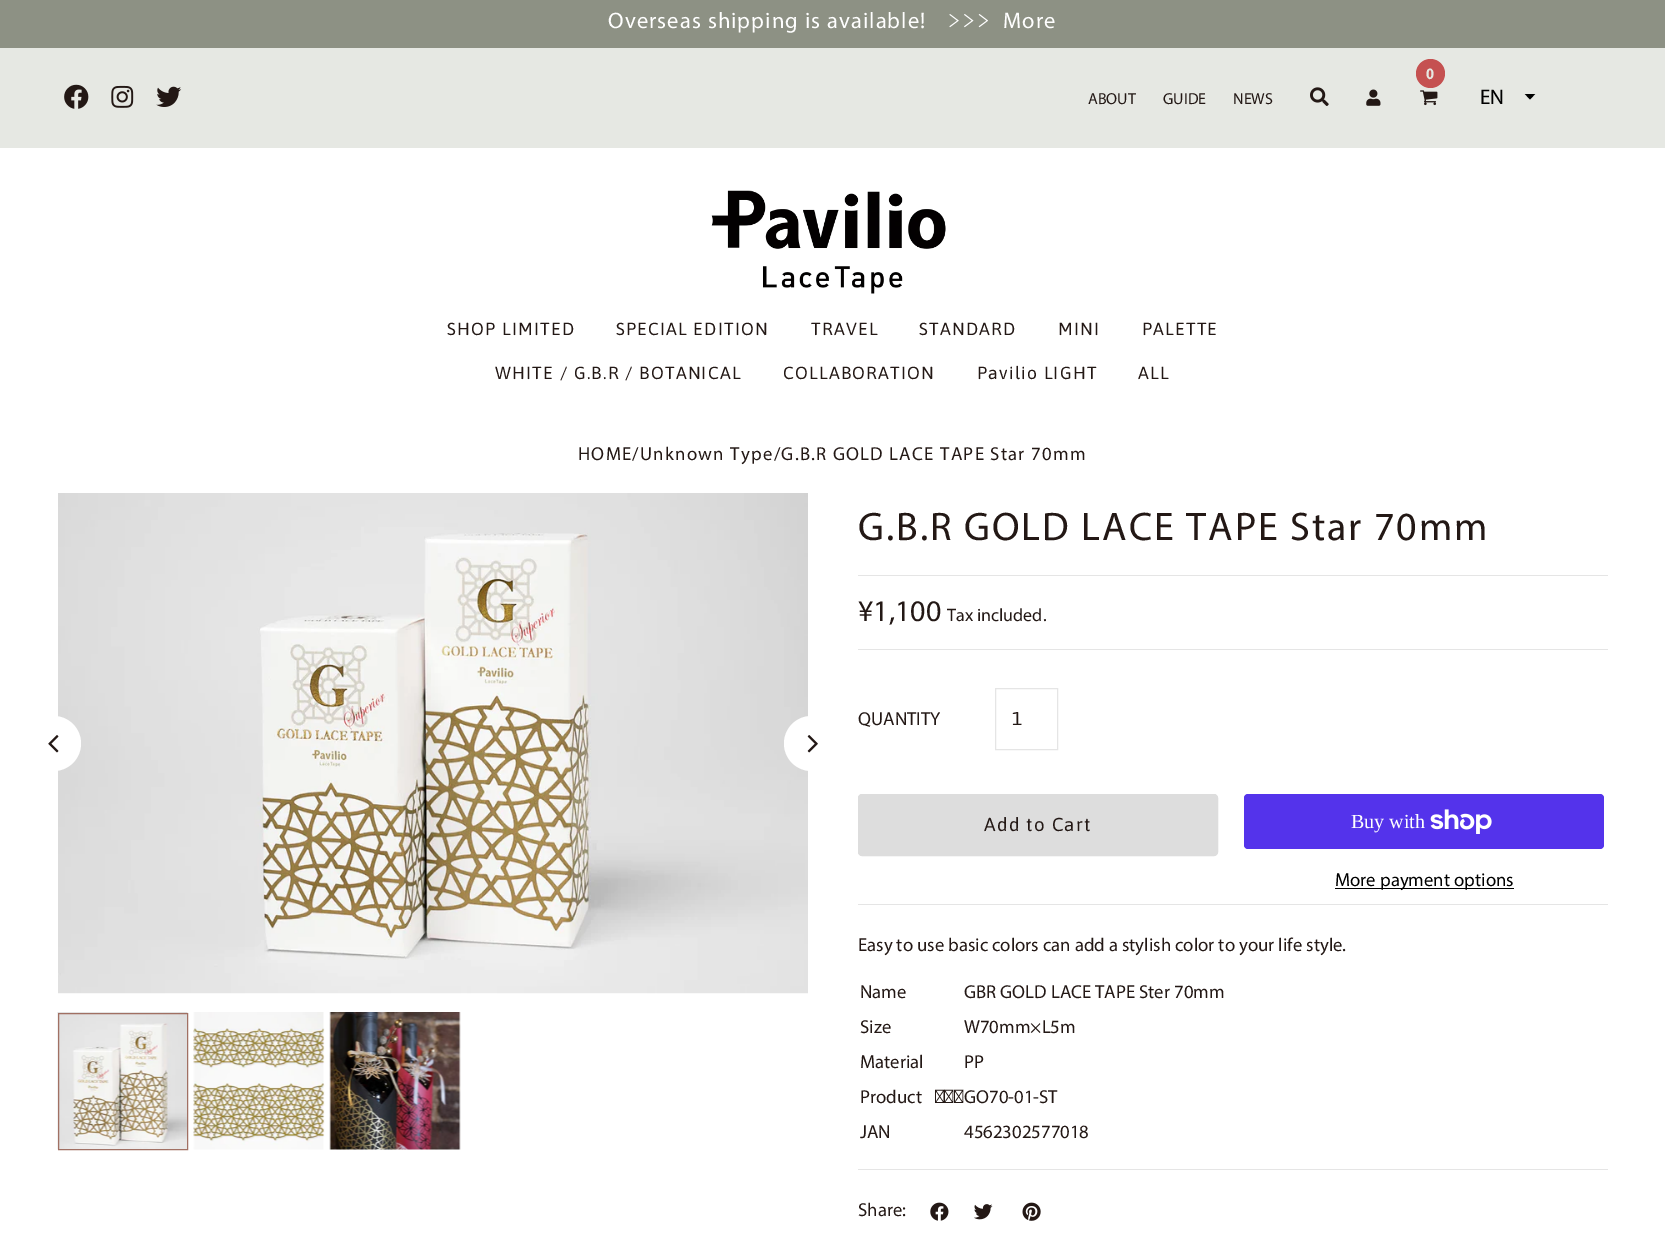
%!PS
<< /PageSize [1665 1240] >> setpagedevice
/roundrect { 5 dict begin { /r /h /w /y /x } { exch def } forall
  x r add y moveto x w add y 2 copy h add r arct x w add y h add x 1 index r arct
  x y h add x y r arct x y 2 copy exch w add exch r arct closepath end } def
/picture { 5 dict begin { /h /w /y /x /name } { exch def } forall
  gsave x y translate w h scale
  w h 8 [w 0 0 h 0 0] name (r) file false 3 colorimage grestore end } def
0 1240 translate 1 -1 scale
4 setmiterlimit
1 setgray
0 0 1665 1240 rectfill
0.553 0.569 0.518 setrgbcolor
0 0 1665 48 rectfill
/Myriad-Regular [22.5 0 0 -22.5 0 0] selectfont
1 setgray
608 28 moveto 1.1 0 (Overseas shipping is available!) ashow
(img1.rgb) 949 14 39 14 picture
1003 28 moveto 1.1 0 (More) ashow
0.902 0.91 0.89 setrgbcolor
0 48 1665 100 rectfill
(img2.rgb) 64 84 25 25 picture
(img3.rgb) 111 85 23 23 picture
(img4.rgb) 156 86 26 21 picture
0.773 0.318 0.318 setrgbcolor
newpath 1430.5 73.5 14.5 0 360 arc closepath fill
/Asap-Bold [15 0 0 -15 0 0] selectfont
0.898 0.91 0.886 setrgbcolor
1426 79 moveto 1.25 0 (0) ashow
(img5.rgb) 1420 90 18 16 picture
/Myriad-Regular [16 0 0 -16 0 0] selectfont
0.137 0.094 0.082 setrgbcolor
1088 104 moveto (ABOUT) show
1163 104 moveto (GUIDE) show
1233 104 moveto (NEWS) show
(img6.rgb) 1310 87 19 19 picture
(img7.rgb) 1366 89 15 17 picture
/Myriad-Regular [21 0 0 -21 0 0] selectfont
0 setgray
1480 104 moveto (EN) show
gsave
1524 94 12 6 rectclip
newpath 1536 93 moveto 1530 99.5 lineto 1524 93 lineto closepath eofill
grestore
(img8.rgb) 711 190 235 104 picture
/Asap-Regular [17.5 0 0 -17.5 0 0] selectfont
0.137 0.094 0.082 setrgbcolor
447 335 moveto 1.25 0 (SHOP LIMITED) ashow
616 335 moveto 1.25 0 (SPECIAL EDITION) ashow
811 335 moveto 1.25 0 (TRAVEL) ashow
919 335 moveto 1.25 0 (STANDARD) ashow
1058 335 moveto 1.25 0 (MINI) ashow
1142 335 moveto 1.25 0 (PALETTE) ashow
495 379 moveto 1.25 0 (WHITE / G.B.R / BOTANICAL) ashow
783 379 moveto 1.25 0 (COLLABORATION) ashow
977 379 moveto 1.25 0 (Pavilio LIGHT) ashow
1138 379 moveto 1.25 0 (ALL) ashow
/Myriad-Regular [18.75 0 0 -18.75 0 0] selectfont
578 460 moveto 1.25 0 (HOME/Unknown Type/G.B.R GOLD LACE TAPE Star 70mm) ashow
(img10.rgb) 58 493 750 501 picture
1 setgray
newpath 53.5 743.5 27.5 0 360 arc closepath fill
(img9.rgb) 48 735 11 18 picture
newpath 811.5 743.5 27.5 0 360 arc closepath fill
(img11.rgb) 807 735 11 18 picture
(img12.rgb) 57 1012 131 138 picture
0.631 0.439 0.388 setrgbcolor
58.5 1013.5 129 136 rectstroke
(img13.rgb) 193 1012 132 138 picture
(img14.rgb) 329 1012 132 138 picture
/Myriad-Regular [40 0 0 -40 0 0] selectfont
0.137 0.094 0.082 setrgbcolor
858 540 moveto 2 0 (G.B.R GOLD LACE TAPE Star 70mm) ashow
0.898 setgray
858 575 750 1 rectfill
858 649 750 1 rectfill
/Myriad-Regular [30 0 0 -30 0 0] selectfont
0.137 0.094 0.082 setrgbcolor
858 621 moveto (¥1,100) show
/Myriad-Regular [18 0 0 -18 0 0] selectfont
947 621 moveto (Tax included.) show
0.898 setgray
858 904 750 1 rectfill
/Myriad-Regular [18.75 0 0 -18.75 0 0] selectfont
0.137 0.094 0.082 setrgbcolor
858 725 moveto (QUANTITY) show
0.898 setgray
995.5 688.5 62 61 rectstroke
/Asap-Regular [18.75 0 0 -18.75 0 0] selectfont
0.137 0.094 0.082 setrgbcolor
1012 725 moveto (1) show
0.867 setgray
858.5 794.5 359 61 3.5 roundrect gsave fill grestore
stroke
0.137 0.094 0.082 setrgbcolor
984 831 moveto 1.25 0 (Add to Cart) ashow
0.329 0.2 0.922 setrgbcolor
1244 794 360 55 4 roundrect fill
/LiberationSerif-Regular [20 0 0 -20 0 0] selectfont
1 setgray
1351 828 moveto (Buy with) show
(img15.rgb) 1430 809 62 25 picture
0 setgray
1335 888 179 1 rectfill
/Myriad-Regular [18.75 0 0 -18.75 0 0] selectfont
1335 886 moveto (More payment options) show
0.137 0.094 0.082 setrgbcolor
858 951 moveto (Easy to use basic colors can add a stylish color to your life style.) show
860 998 moveto (Name) show
964 998 moveto (GBR GOLD LACE TAPE Ster 70mm) show
860 1033 moveto (Size) show
964 1033 moveto (W70mm×L5m) show
860 1068 moveto (Material) show
964 1068 moveto (PP) show
860 1103 moveto 9 0 32 (Product №) widthshow
964 1103 moveto (GO70-01-ST) show
860 1138 moveto (JAN) show
964 1138 moveto (4562302577018) show
0.898 setgray
858 1169 750 1 rectfill
0.137 0.094 0.082 setrgbcolor
858 1216 moveto (Share:) show
(img16.rgb) 930 1202 19 19 picture
(img17.rgb) 974 1204 19 16 picture
(img18.rgb) 1022 1202 19 19 picture
showpage
